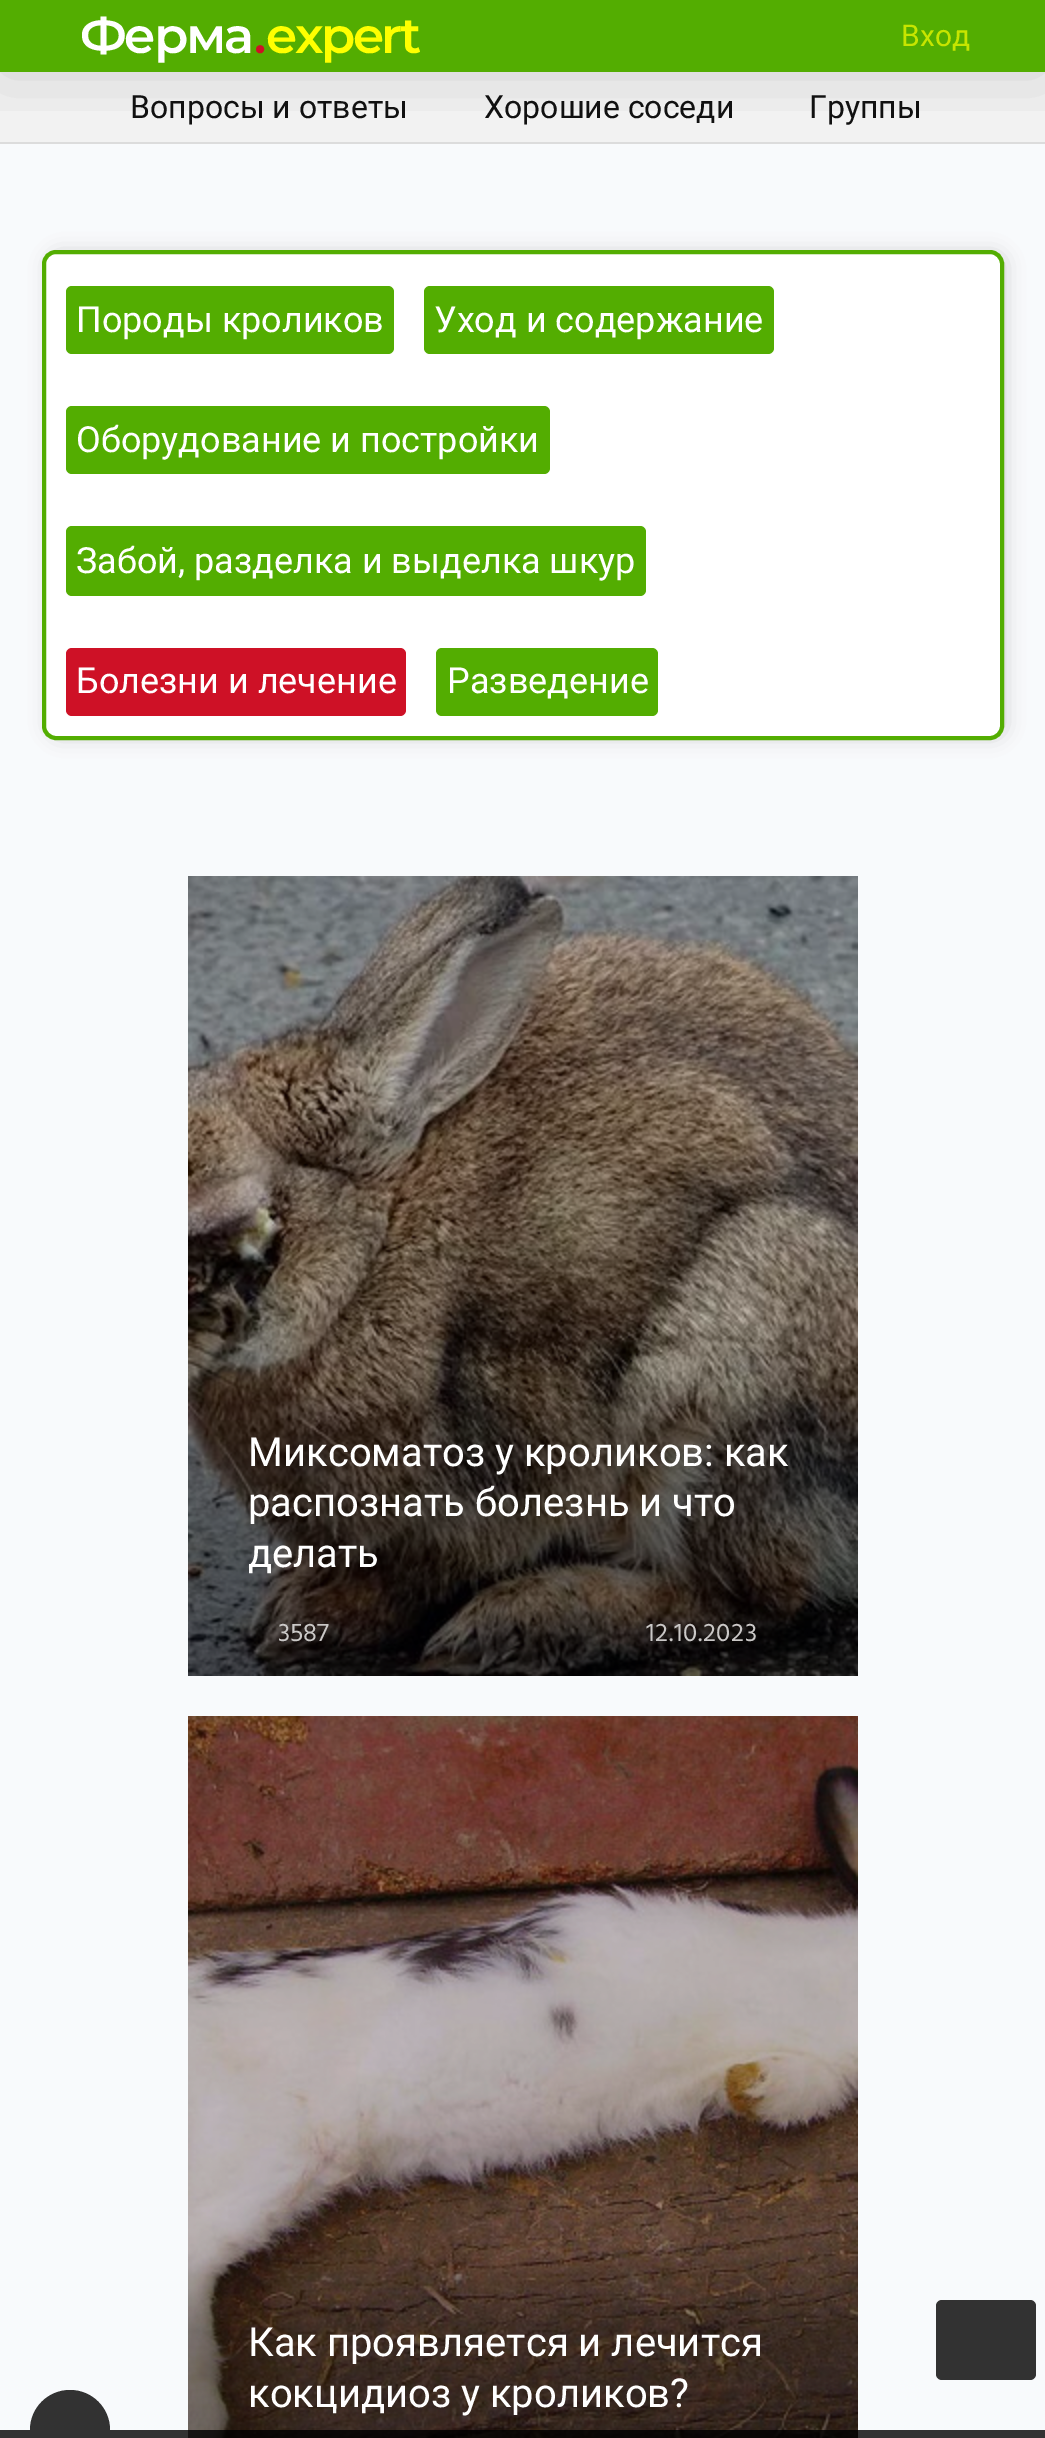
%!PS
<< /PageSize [1045 2438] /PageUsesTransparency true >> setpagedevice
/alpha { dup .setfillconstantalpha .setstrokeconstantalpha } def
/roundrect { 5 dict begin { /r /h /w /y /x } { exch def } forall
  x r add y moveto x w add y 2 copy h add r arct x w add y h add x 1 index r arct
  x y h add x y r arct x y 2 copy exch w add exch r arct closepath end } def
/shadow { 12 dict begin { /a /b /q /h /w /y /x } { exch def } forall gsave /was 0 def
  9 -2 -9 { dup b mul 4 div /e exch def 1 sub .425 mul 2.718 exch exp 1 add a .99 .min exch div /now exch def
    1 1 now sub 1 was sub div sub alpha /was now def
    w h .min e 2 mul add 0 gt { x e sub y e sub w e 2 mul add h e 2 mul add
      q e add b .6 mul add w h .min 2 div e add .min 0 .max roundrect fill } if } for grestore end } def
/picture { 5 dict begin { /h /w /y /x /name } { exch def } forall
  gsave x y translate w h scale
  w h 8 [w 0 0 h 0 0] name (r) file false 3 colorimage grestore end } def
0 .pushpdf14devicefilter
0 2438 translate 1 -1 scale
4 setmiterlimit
0.973 0.98 0.988 setrgbcolor
0 0 1045 2438 rectfill
0.325 0.678 0.004 setrgbcolor
0 0 1045 72 rectfill
0.949 setgray
0 72 1045 70 rectfill
0.863 setgray
0 142 1045 2 rectfill
gsave
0 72 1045 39 rectclip
0.063 0.071 0.067 setrgbcolor
0 0 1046 72 0 35 0.15 shadow
grestore
/Montserrat-SemiBold [50 0 0 -50 0 0] selectfont
1 setgray
80 53 moveto -2.5 0 (Ферма) ashow
0.808 0.067 0.149 setrgbcolor
254 53 moveto -2.5 0 (.) ashow
1 1 0 setrgbcolor
266 53 moveto -2.5 0 (expert) ashow
/Roboto-Regular [30 0 0 -30 0 0] selectfont
0.78 0.898 0 setrgbcolor
901 46 moveto (Вход) show
/Roboto-Regular [32 0 0 -32 0 0] selectfont
0.067 setgray
130 118 moveto (Вопросы и ответы) show
484 118 moveto (Хорошие соседи) show
809 118 moveto (Группы) show
0.788 setgray
50 254 954 482 10 10 1 shadow
1 setgray
44 252 958 486 12 roundrect gsave fill grestore
0.325 0.678 0.004 setrgbcolor
4 setlinewidth
stroke
66 286 328 68 6 roundrect fill
/Roboto-Regular [36 0 0 -36 0 0] selectfont
1 setgray
76 332 moveto (Породы кроликов) show
0.325 0.678 0.004 setrgbcolor
424 286 350 68 6 roundrect fill
1 setgray
434 332 moveto (Уход и содержание) show
0.325 0.678 0.004 setrgbcolor
66 406 484 68 6 roundrect fill
1 setgray
76 452 moveto (Оборудование и постройки) show
0.325 0.678 0.004 setrgbcolor
66 526 580 70 6 roundrect fill
1 setgray
76 573 moveto (Забой, разделка и выделка шкур) show
0.808 0.067 0.149 setrgbcolor
66 648 340 68 6 roundrect fill
1 setgray
76 693 moveto (Болезни и лечение) show
0.325 0.678 0.004 setrgbcolor
436 648 222 68 6 roundrect fill
1 setgray
447 693 moveto (Разведение) show
(img1.rgb) 188 876 670 800 picture
/Roboto-Regular [40 0 0 -40 0 0] selectfont
248 1466 moveto (Миксоматоз у кроликов: как) show
248 1516 moveto (распознать болезнь и что) show
248 1567 moveto (делать) show
/Hind-Regular [26 0 0 -26 0 0] selectfont
0.792 0.784 0.78 setrgbcolor
278 1641 moveto (3587) show
646 1641 moveto 0.75 0 (12.10.2023) ashow
(img2.rgb) 188 1716 670 722 picture
/Roboto-Regular [40 0 0 -40 0 0] selectfont
1 setgray
248 2356 moveto (Как проявляется и лечится) show
248 2407 moveto (кокцидиоз у кроликов?) show
0.196 setgray
936 2300 100 80 6 roundrect fill
0.8 alpha
0 setgray
0 2430 1045 8 rectfill
1 alpha
0.196 setgray
newpath 70 2430 40 0 360 arc closepath fill
.poppdf14devicefilter showpage
